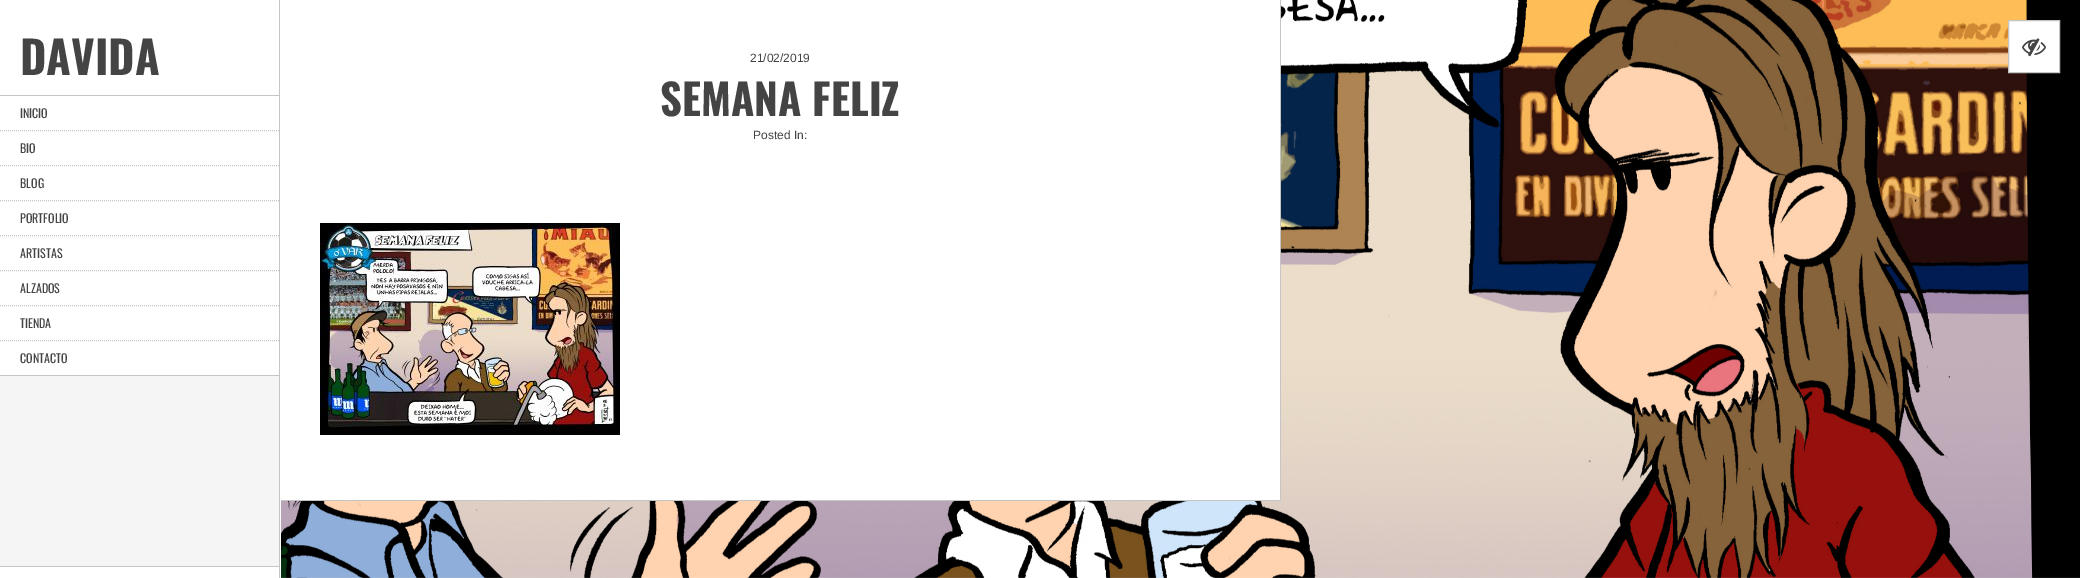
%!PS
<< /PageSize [2080 578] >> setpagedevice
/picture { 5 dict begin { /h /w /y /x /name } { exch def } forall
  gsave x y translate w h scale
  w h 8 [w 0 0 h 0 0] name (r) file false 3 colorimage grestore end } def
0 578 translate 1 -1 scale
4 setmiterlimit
1 setgray
0 0 2080 578 rectfill
(img1.rgb) 281 0 1799 578 picture
0.961 setgray
0 376 279 190 rectfill
0.773 setgray
279 0 1 578 rectfill
0 95 279 1 rectfill
/Oswald-Bold [45 0 0 -45 0 0] selectfont
0.267 setgray
20 75 moveto (DAVIDA) show
0.773 setgray
[1 1] 0 setdash
newpath 0 130.5 moveto 279 130.5 lineto stroke
/Oswald-Regular [12 0 0 -12 0 0] selectfont
0.267 setgray
20 118 moveto (INICIO) show
0.773 setgray
newpath 0 165.5 moveto 279 165.5 lineto stroke
0.267 setgray
20 153 moveto (BIO) show
0.773 setgray
newpath 0 200.5 moveto 279 200.5 lineto stroke
0.267 setgray
20 188 moveto (BLOG) show
0.773 setgray
newpath 0 235.5 moveto 279 235.5 lineto stroke
0.267 setgray
20 223 moveto (PORTFOLIO) show
0.773 setgray
newpath 0 270.5 moveto 279 270.5 lineto stroke
0.267 setgray
20 258 moveto (ARTISTAS) show
0.773 setgray
newpath 0 305.5 moveto 279 305.5 lineto stroke
0.267 setgray
20 293 moveto (ALZADOS) show
0.773 setgray
newpath 0 340.5 moveto 279 340.5 lineto stroke
0.267 setgray
20 328 moveto (TIENDA) show
0.773 setgray
0 375 279 1 rectfill
0.267 setgray
20 363 moveto (CONTACTO) show
0.773 setgray
0 566 279 1 rectfill
1 setgray
281 0 999 500 rectfill
0.773 setgray
1280 0 1 501 rectfill
281 500 1000 1 rectfill
/LiberationSans-Regular [12 0 0 -12 0 0] selectfont
0.267 setgray
750 62 moveto (21/02/2019) show
/Oswald-Bold [42.5 0 0 -42.5 0 0] selectfont
660 116 moveto (SEMANA FELIZ) show
/LiberationSans-Regular [12 0 0 -12 0 0] selectfont
753 139 moveto (Posted In:) show
(img2.rgb) 320 223 300 212 picture
1 setgray
newpath 2008.5 20.5 moveto 2059.5 20.5 lineto 2059.5 72.5 lineto 2008.5 72.5 lineto closepath gsave fill grestore
0.773 setgray
[] 0 setdash
stroke
(img3.rgb) 2022 38 24 19 picture
showpage
